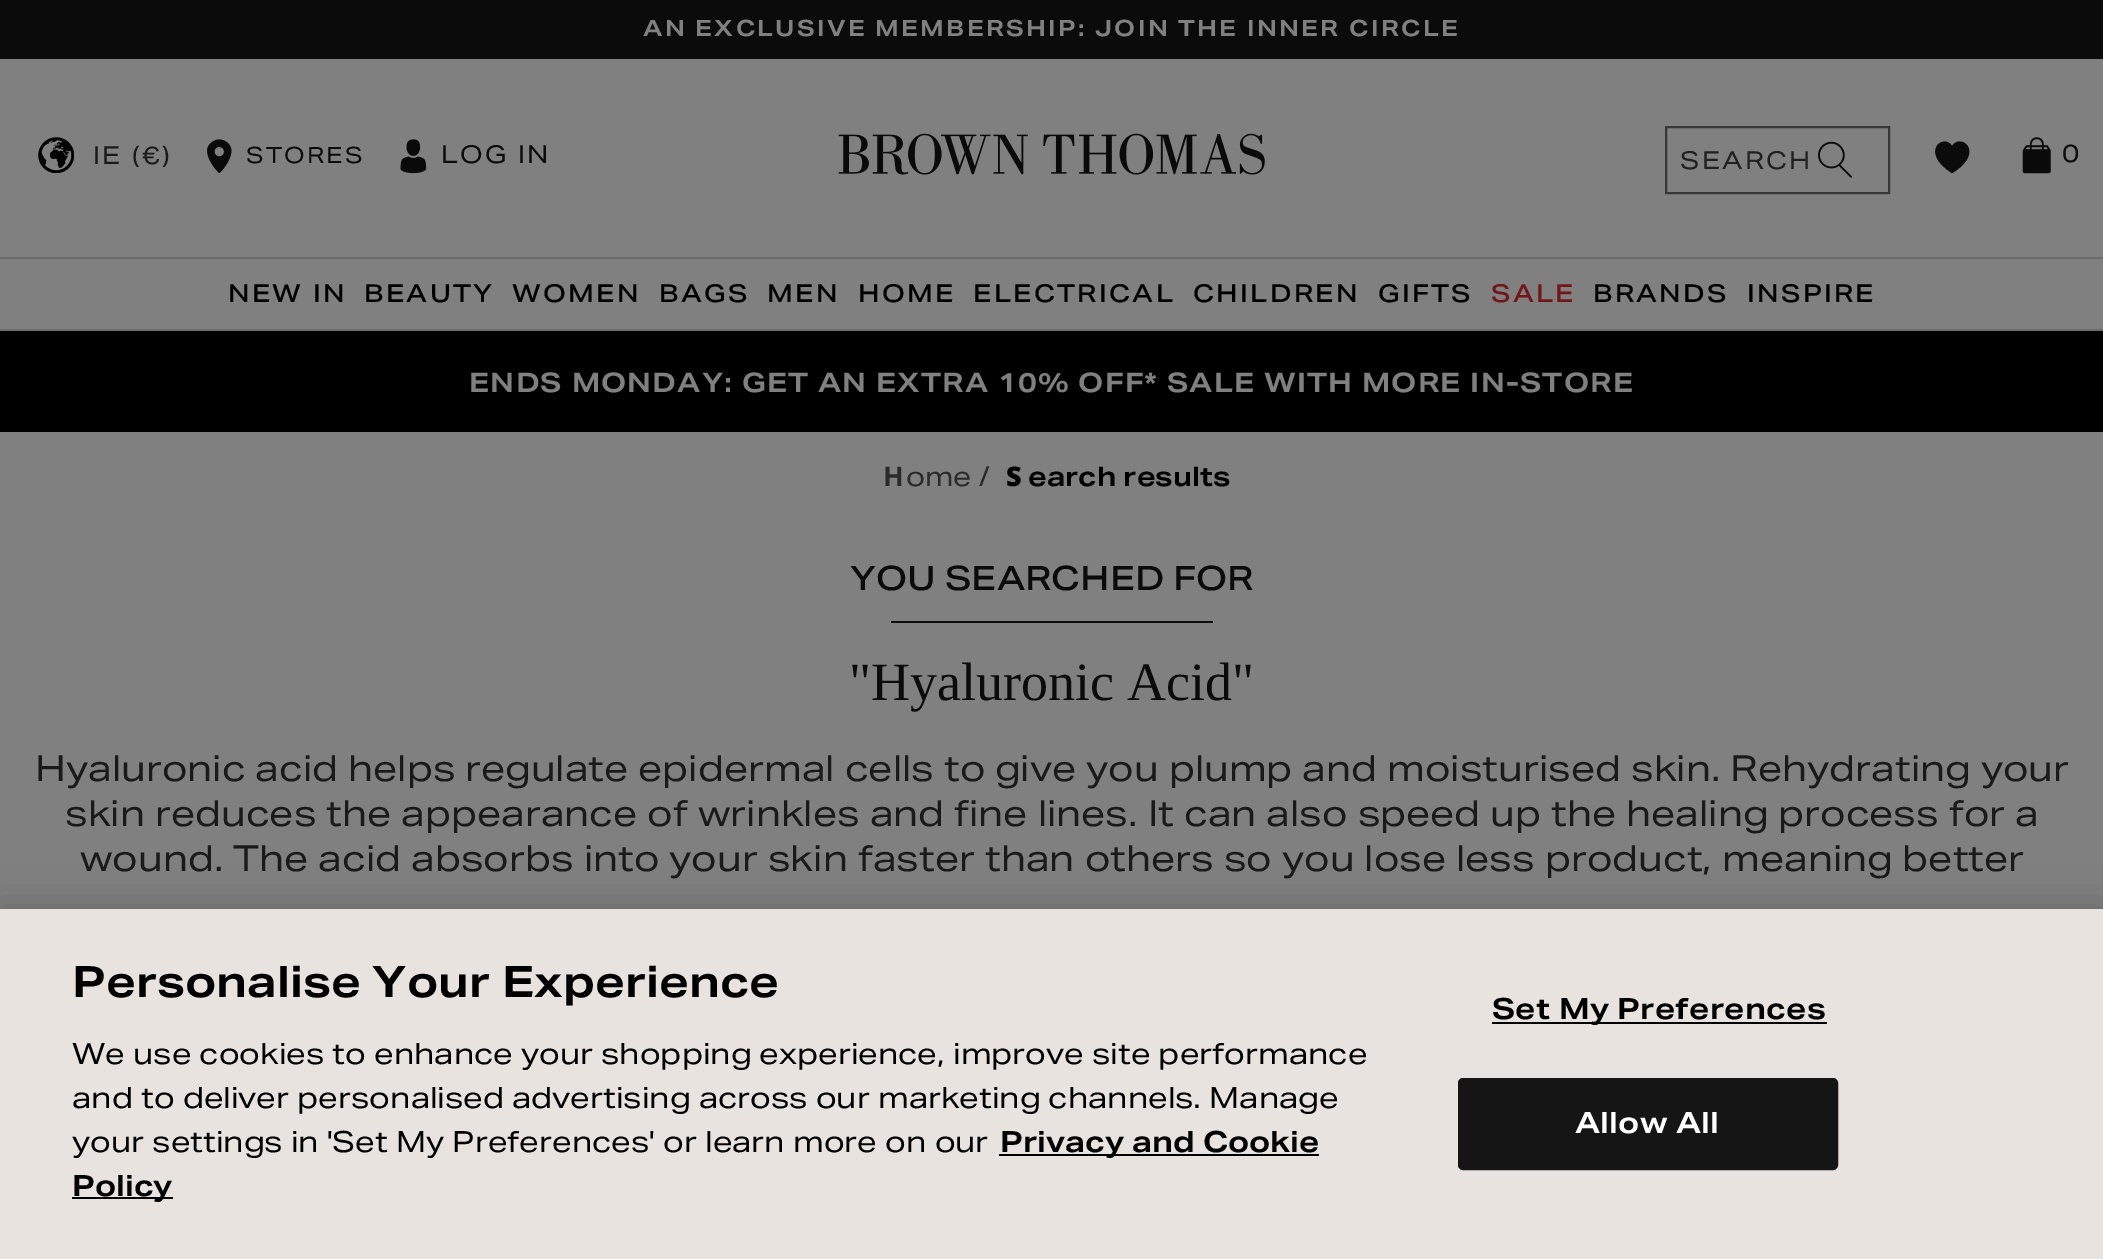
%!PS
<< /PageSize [2103 1259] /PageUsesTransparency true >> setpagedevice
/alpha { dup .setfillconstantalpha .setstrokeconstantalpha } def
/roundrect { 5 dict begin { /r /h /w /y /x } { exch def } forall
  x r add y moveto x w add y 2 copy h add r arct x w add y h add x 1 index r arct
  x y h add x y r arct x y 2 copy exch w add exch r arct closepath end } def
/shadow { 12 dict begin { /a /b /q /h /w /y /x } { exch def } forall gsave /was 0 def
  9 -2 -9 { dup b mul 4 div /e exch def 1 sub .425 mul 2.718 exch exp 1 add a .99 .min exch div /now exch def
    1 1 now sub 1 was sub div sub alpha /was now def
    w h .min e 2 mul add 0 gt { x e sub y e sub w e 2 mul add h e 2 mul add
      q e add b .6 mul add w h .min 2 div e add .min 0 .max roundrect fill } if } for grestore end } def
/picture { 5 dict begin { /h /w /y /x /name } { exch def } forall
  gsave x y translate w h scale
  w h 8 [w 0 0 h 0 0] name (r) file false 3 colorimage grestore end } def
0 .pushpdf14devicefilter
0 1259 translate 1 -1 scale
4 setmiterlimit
0.502 setgray
0 0 2103 1259 rectfill
0.043 setgray
0 0 2103 59 rectfill
/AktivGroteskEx-Bold [22.5 0 0 -22.5 0 0] selectfont
0.502 setgray
643 36 moveto 2.25 0 (AN EXCLUSIVE MEMBERSHIP: JOIN THE INNER CIRCLE) ashow
(img1.rgb) 838 133 427 42 picture
(img2.rgb) 38 137 36 36 picture
/AktivGroteskEx-Regular [24.75 0 0 -24.75 0 0] selectfont
0.102 setgray
93 164 moveto 2.25 0 (IE \(€\)) ashow
(img3.rgb) 207 139 25 34 picture
/AktivGroteskEx-Regular [22.5 0 0 -22.5 0 0] selectfont
0.043 setgray
246 163 moveto 2.25 0 (STORES) ashow
(img4.rgb) 400 139 27 35 picture
/AktivGroteskEx-Regular [24.75 0 0 -24.75 0 0] selectfont
441 163 moveto 2.25 0 (LOG IN) ashow
0.42 setgray
0 257 2103 2 rectfill
0 329 2103 2 rectfill
/AktivGroteskEx-Medium [24.75 0 0 -24.75 0 0] selectfont
0 setgray
228 302 moveto 2.25 0 (NEW IN) ashow
364 302 moveto 2.25 0 (BEAUTY) ashow
512 302 moveto 2.25 0 (WOMEN) ashow
659 302 moveto 2.25 0 (BAGS) ashow
767 302 moveto 2.25 0 (MEN) ashow
858 302 moveto 2.25 0 (HOME) ashow
973 302 moveto 2.25 0 (ELECTRICAL) ashow
1193 302 moveto 2.25 0 (CHILDREN) ashow
1378 302 moveto 2.25 0 (GIFTS) ashow
0.443 0.09 0.09 setrgbcolor
1491 302 moveto 2.25 0 (SALE) ashow
0 setgray
1593 302 moveto 2.25 0 (BRANDS) ashow
1747 302 moveto 2.25 0 (INSPIRE) ashow
0.22 setgray
2 setlinewidth
1666 127 223 66 rectstroke
/AktivGroteskEx-Regular [24.75 0 0 -24.75 0 0] selectfont
0.125 setgray
1680 169 moveto 2.25 0 (SEARCH) ashow
(img5.rgb) 1818 141 34 37 picture
0.043 setgray
newpath 1952 173 moveto 1951 173 1945.5 168.5 1944.5 167.5 curveto 1923 149 1944.5 133.5 1952 146 curveto 1960 133.5 1981.5 149 1960 167.5 curveto 1958.5 168.5 1953.5 173 1952 173 curveto closepath fill
(img6.rgb) 2022 137 29 37 picture
2062 162 moveto 2.25 0 (0) ashow
0 setgray
0 331 2103 101 rectfill
/AktivGroteskEx-Bold [27 0 0 -27 0 0] selectfont
0.502 setgray
469 392 moveto 1.12 0 (ENDS MONDAY: GET AN EXTRA 10% OFF* SALE WITH MORE IN-STORE) ashow
/NotoSans-Bold [27 0 0 -27 0 0] selectfont
0.165 setgray
883 486 moveto (H) show
/AktivGroteskEx-Regular [27 0 0 -27 0 0] selectfont
906 486 moveto (ome /) show
/NotoSans-Black [27 0 0 -27 0 0] selectfont
0 setgray
1006 486 moveto (S) show
/AktivGroteskEx-Bold [27 0 0 -27 0 0] selectfont
1028 486 moveto (earch results) show
/AktivGroteskEx-Medium [33.75 0 0 -33.75 0 0] selectfont
0.043 setgray
850 590 moveto (YOU SEARCHED FOR) show
891 621 322 2 rectfill
/LiberationSerif-Regular [54 0 0 -54 0 0] selectfont
849 700 moveto ("Hyaluronic Acid") show
/AktivGroteskEx-Regular [36 0 0 -36 0 0] selectfont
0.102 setgray
35 781 moveto (Hyaluronic acid helps regulate epidermal cells to give you plump and moisturised skin. Rehydrating your) show
65 826 moveto (skin reduces the appearance of wrinkles and fine lines. It can also speed up the healing process for a) show
80 871 moveto (wound. The acid absorbs into your skin faster than others so you lose less product, meaning better) show
0 setgray
0 909 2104 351 0 20 0.2 shadow
0.91 0.89 0.871 setrgbcolor
0 909 2103 350 rectfill
/AktivGroteskEx-Bold [43.25 0 0 -43.25 0 0] selectfont
0 setgray
72 997 moveto (Personalise Your Experience) show
/AktivGroteskEx-Regular [29.25 0 0 -29.25 0 0] selectfont
72 1064 moveto (We use cookies to enhance your shopping experience, improve site performance) show
72 1108 moveto (and to deliver personalised advertising across our marketing channels. Manage) show
72 1152 moveto (your settings in 'Set My Preferences' or learn more on our) show
999 1154 320 2 rectfill
/AktivGroteskEx-Bold [29.25 0 0 -29.25 0 0] selectfont
1000 1152 moveto (Privacy and Cookie) show
72 1197 101 2 rectfill
72 1196 moveto (Policy) show
1492 1022 335 2 rectfill
1492 1019 moveto 0.25 0 (Set My Preferences) ashow
0.082 setgray
1459 1079 378 90 4 roundrect gsave fill grestore
stroke
1 setgray
1575 1133 moveto 0.25 0 (Allow All) ashow
.poppdf14devicefilter showpage
